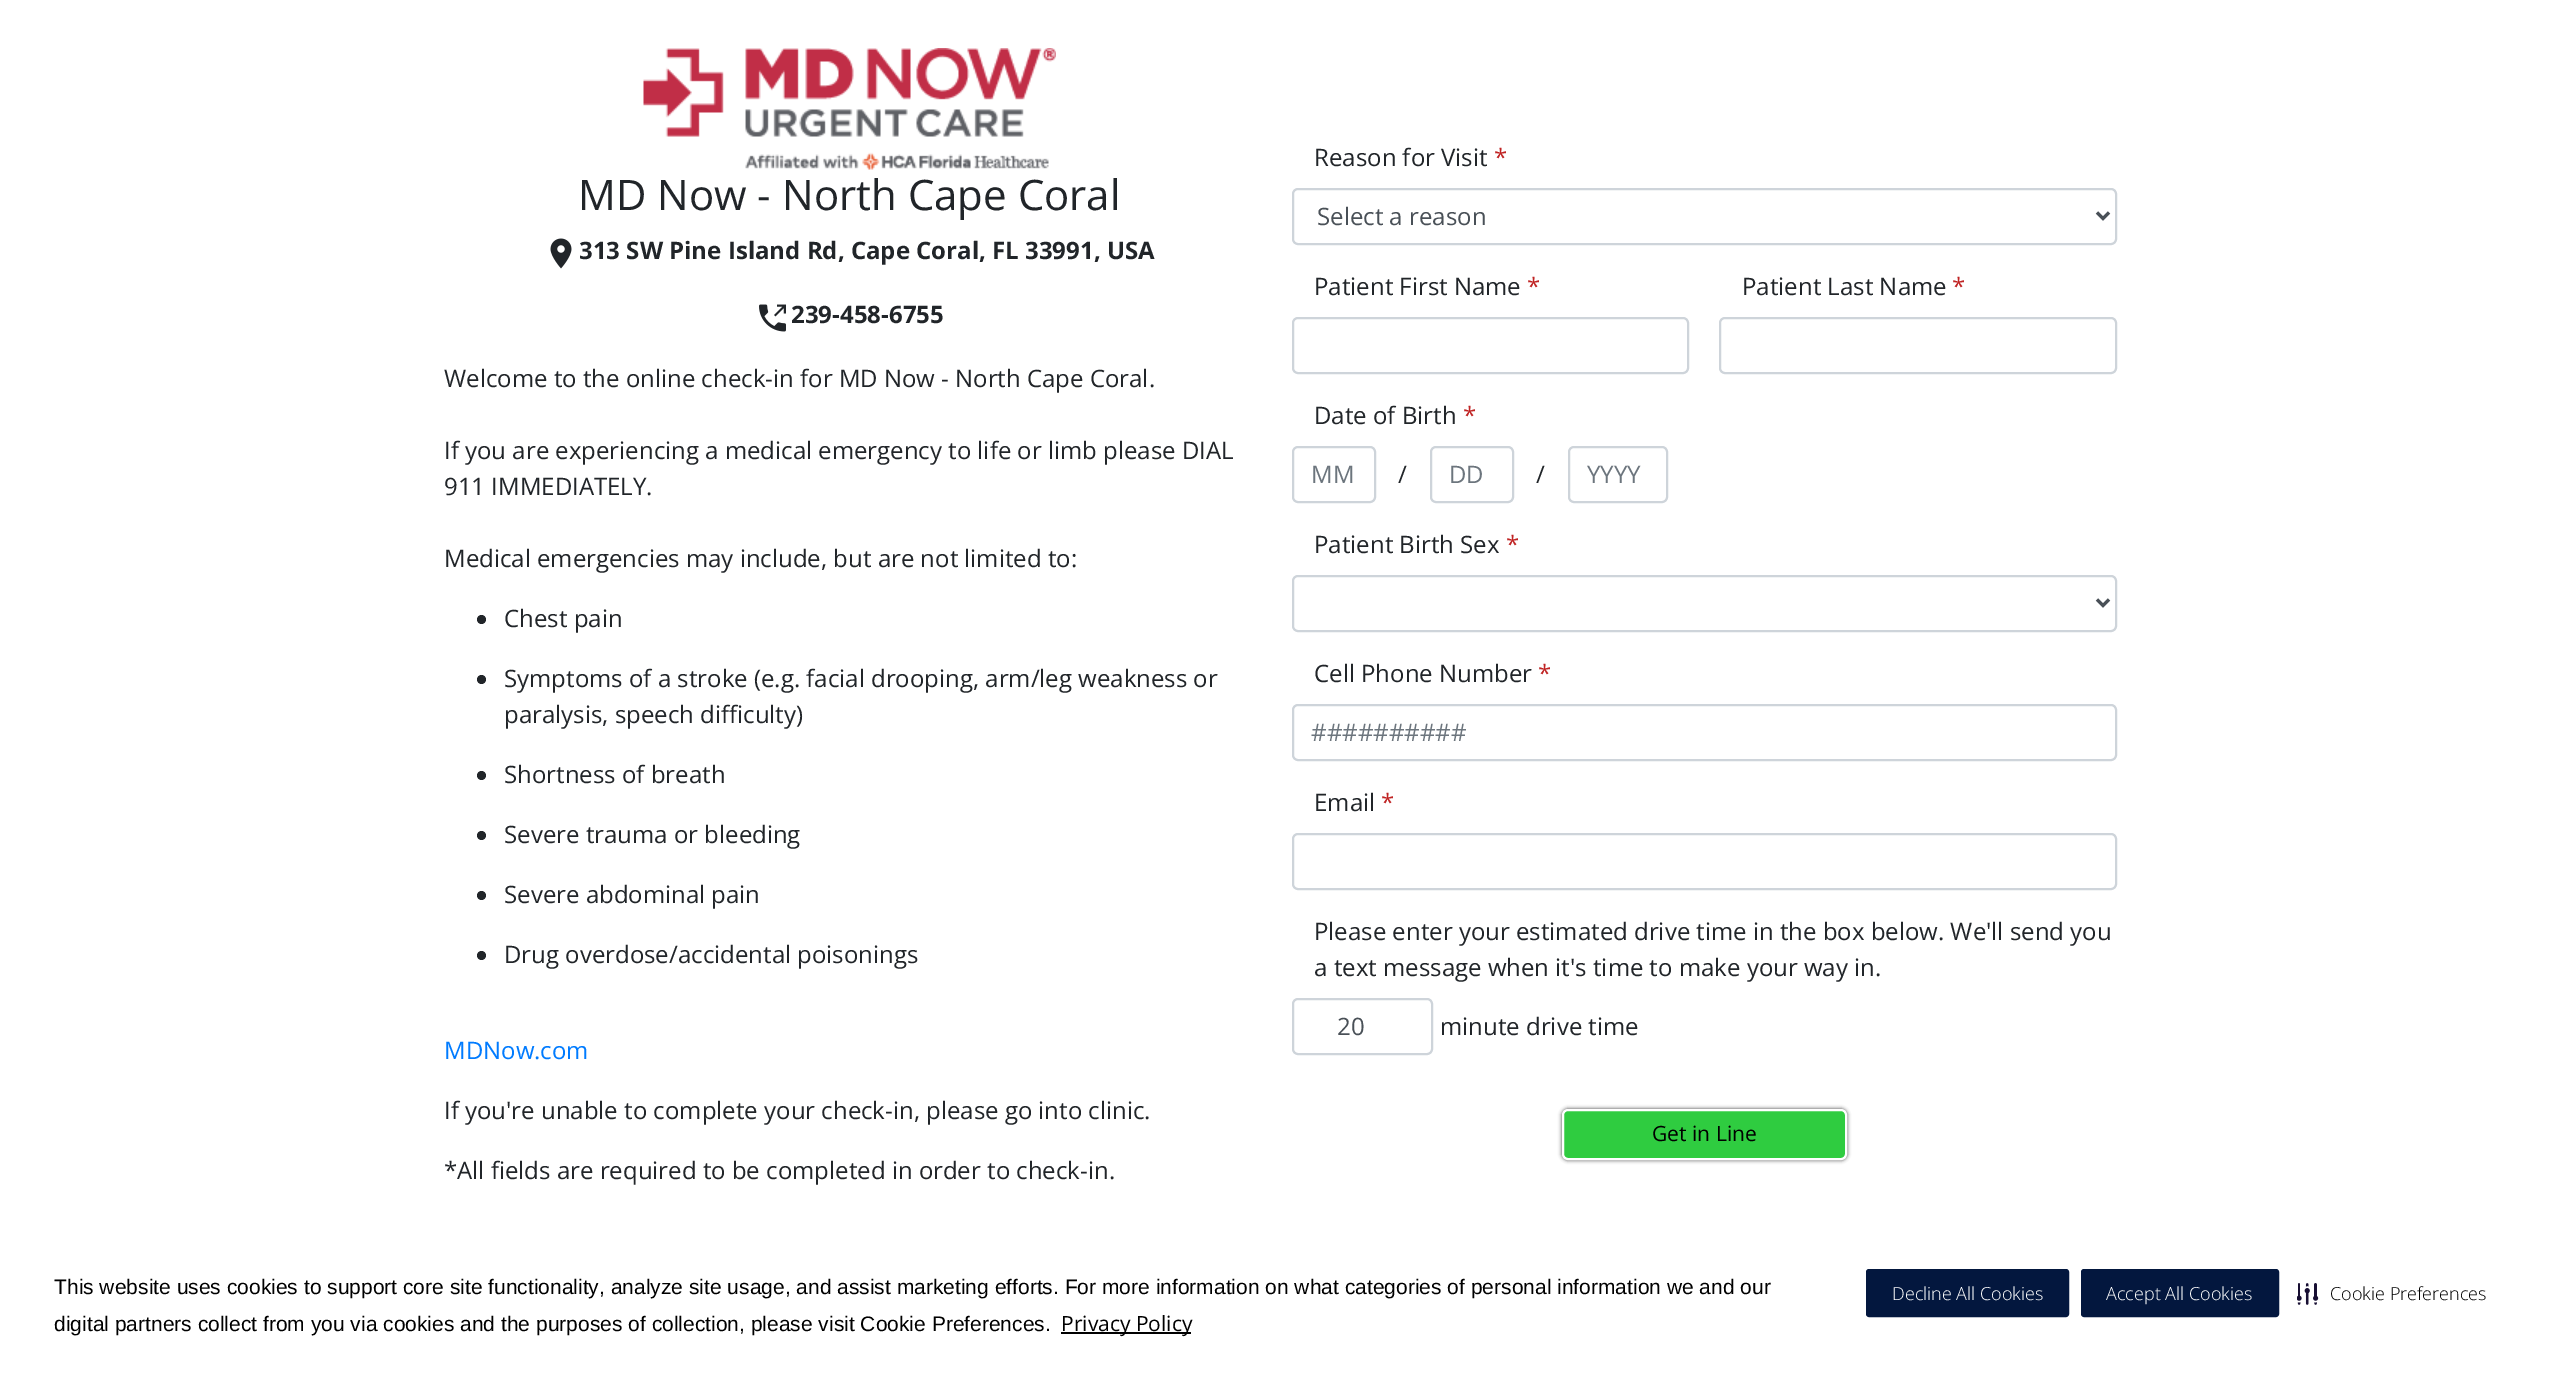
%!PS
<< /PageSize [2553 1378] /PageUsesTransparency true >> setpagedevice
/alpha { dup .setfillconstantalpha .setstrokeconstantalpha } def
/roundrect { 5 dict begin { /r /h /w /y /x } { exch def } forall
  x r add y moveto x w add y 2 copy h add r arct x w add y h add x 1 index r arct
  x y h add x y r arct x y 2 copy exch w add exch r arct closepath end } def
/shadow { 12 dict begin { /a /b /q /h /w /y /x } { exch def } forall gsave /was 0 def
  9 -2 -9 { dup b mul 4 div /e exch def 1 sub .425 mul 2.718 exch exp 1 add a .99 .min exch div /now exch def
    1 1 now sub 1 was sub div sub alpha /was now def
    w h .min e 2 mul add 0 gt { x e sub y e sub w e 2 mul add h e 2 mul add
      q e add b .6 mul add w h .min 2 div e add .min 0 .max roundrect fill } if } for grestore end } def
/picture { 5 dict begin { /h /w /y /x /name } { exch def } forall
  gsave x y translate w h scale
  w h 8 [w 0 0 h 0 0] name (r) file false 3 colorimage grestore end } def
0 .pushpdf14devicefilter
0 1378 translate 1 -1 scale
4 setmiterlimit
1 setgray
0 0 2553 1378 rectfill
(img1.rgb) 643 48 413 122 picture
/OpenSans-Regular [42 0 0 -42 0 0] selectfont
0.129 0.145 0.161 setrgbcolor
578 210 moveto (MD Now - North Cape Coral) show
(img2.rgb) 550 238 22 31 picture
/OpenSans-Bold [24 0 0 -24 0 0] selectfont
579 259 moveto (313 SW Pine Island Rd, Cape Coral, FL 33991, USA) show
(img3.rgb) 759 304 27 28 picture
791 323 moveto (239-458-6755) show
/OpenSans-Regular [24 0 0 -24 0 0] selectfont
444 387 moveto (Welcome to the online check-in for MD Now - North Cape Coral.) show
444 459 moveto (If you are experiencing a medical emergency to life or limb please DIAL) show
444 495 moveto (911 IMMEDIATELY.) show
444 567 moveto (Medical emergencies may include, but are not limited to:) show
newpath 481.5 619.5 4.5 0 360 arc closepath fill
504 627 moveto (Chest pain) show
newpath 481.5 679.5 4.5 0 360 arc closepath fill
504 687 moveto (Symptoms of a stroke \(e.g. facial drooping, arm/leg weakness or) show
504 723 moveto (paralysis, speech difficulty\)) show
newpath 481.5 775.5 4.5 0 360 arc closepath fill
504 783 moveto (Shortness of breath) show
newpath 481.5 835.5 4.5 0 360 arc closepath fill
504 843 moveto (Severe trauma or bleeding) show
newpath 481.5 895.5 4.5 0 360 arc closepath fill
504 903 moveto (Severe abdominal pain) show
newpath 481.5 955.5 4.5 0 360 arc closepath fill
504 963 moveto (Drug overdose/accidental poisonings) show
0 0.482 1 setrgbcolor
444 1059 moveto (MDNow.com) show
0.129 0.145 0.161 setrgbcolor
444 1119 moveto (If you're unable to complete your check-in, please go into clinic.) show
444 1179 moveto (*All fields are required to be completed in order to check-in.) show
1314 166 moveto (Reason for Visit) show
0.753 0.141 0.141 setrgbcolor
1494 166 moveto (*) show
0.808 0.831 0.855 setrgbcolor
2 setlinewidth
1293 189 823 55 5 roundrect stroke
0.286 0.314 0.341 setrgbcolor
3 setlinewidth
newpath 2097 212.5 moveto 2103 218.5 lineto 2109 212.5 lineto stroke
1317 225 moveto (Select a reason) show
0.129 0.145 0.161 setrgbcolor
1314 295 moveto (Patient First Name) show
0.753 0.141 0.141 setrgbcolor
1527 295 moveto (*) show
0.808 0.831 0.855 setrgbcolor
2 setlinewidth
1293 318 395 55 5 roundrect stroke
0.129 0.145 0.161 setrgbcolor
1742 295 moveto (Patient Last Name) show
0.753 0.141 0.141 setrgbcolor
1952 295 moveto (*) show
0.808 0.831 0.855 setrgbcolor
1720 318 396 55 5 roundrect stroke
0.129 0.145 0.161 setrgbcolor
1314 424 moveto (Date of Birth) show
0.753 0.141 0.141 setrgbcolor
1463 424 moveto (*) show
0.808 0.831 0.855 setrgbcolor
1293 447 82 55 5 roundrect stroke
0.424 0.459 0.49 setrgbcolor
1311 483 moveto (MM) show
0.129 0.145 0.161 setrgbcolor
1398 483 moveto (/) show
0.808 0.831 0.855 setrgbcolor
1431 447 82 55 5 roundrect stroke
0.424 0.459 0.49 setrgbcolor
1449 483 moveto (DD) show
0.129 0.145 0.161 setrgbcolor
1536 483 moveto (/) show
0.808 0.831 0.855 setrgbcolor
1569 447 98 55 5 roundrect stroke
0.424 0.459 0.49 setrgbcolor
1587 483 moveto (YYYY) show
0.129 0.145 0.161 setrgbcolor
1314 553 moveto (Patient Birth Sex) show
0.753 0.141 0.141 setrgbcolor
1506 553 moveto (*) show
0.808 0.831 0.855 setrgbcolor
1293 576 823 55 5 roundrect stroke
0.286 0.314 0.341 setrgbcolor
3 setlinewidth
newpath 2097 599.5 moveto 2103 605.5 lineto 2109 599.5 lineto stroke
0.129 0.145 0.161 setrgbcolor
1314 682 moveto (Cell Phone Number) show
0.753 0.141 0.141 setrgbcolor
1538 682 moveto (*) show
0.808 0.831 0.855 setrgbcolor
2 setlinewidth
1293 705 823 55 5 roundrect stroke
0.424 0.459 0.49 setrgbcolor
1311 741 moveto (##########) show
0.129 0.145 0.161 setrgbcolor
1314 811 moveto (Email) show
0.753 0.141 0.141 setrgbcolor
1381 811 moveto (*) show
0.808 0.831 0.855 setrgbcolor
1293 834 823 55 5 roundrect stroke
0.129 0.145 0.161 setrgbcolor
1314 940 moveto (Please enter your estimated drive time in the box below. We'll send you) show
1314 976 moveto (a text message when it's time to make your way in.) show
0.808 0.831 0.855 setrgbcolor
1293 999 139 55 5 roundrect stroke
0.286 0.314 0.341 setrgbcolor
1337 1035 moveto (20) show
0.129 0.145 0.161 setrgbcolor
1440 1035 moveto (minute drive time) show
0.2 setgray
1562 1109 285 51 6 2 1 shadow
0.184 0.8 0.251 setrgbcolor
1563 1110 283 49 5 roundrect gsave fill grestore
1 setgray
stroke
/OpenSans-Regular [21 0 0 -21 0 0] selectfont
0 setgray
1652 1141 moveto (Get in Line) show
/LiberationSans-Regular [21 0 0 -21 0 0] selectfont
54 1294 moveto (This website uses cookies to support core site functionality, analyze site usage, and assist marketing efforts. For more information on what categories of personal information we and our) show
54 1331 moveto (digital partners collect from you via cookies and the purposes of collection, please visit Cookie Preferences.) show
1061 1332 130 2 rectfill
/OpenSans-Regular [21 0 0 -21 0 0] selectfont
1061 1331 moveto (Privacy Policy) show
0.012 0.09 0.243 setrgbcolor
1867 1270 201 46 2 roundrect gsave fill grestore
stroke
/OpenSans-Light [18 0 0 -18 0 0] selectfont
1 setgray
1892 1300 moveto (Decline All Cookies) show
0.012 0.09 0.243 setrgbcolor
2082 1270 196 46 2 roundrect gsave fill grestore
stroke
1 setgray
2106 1300 moveto (Accept All Cookies) show
(img4.rgb) 2297 1283 22 22 picture
0 setgray
2330 1300 moveto (Cookie Preferences) show
.poppdf14devicefilter showpage
